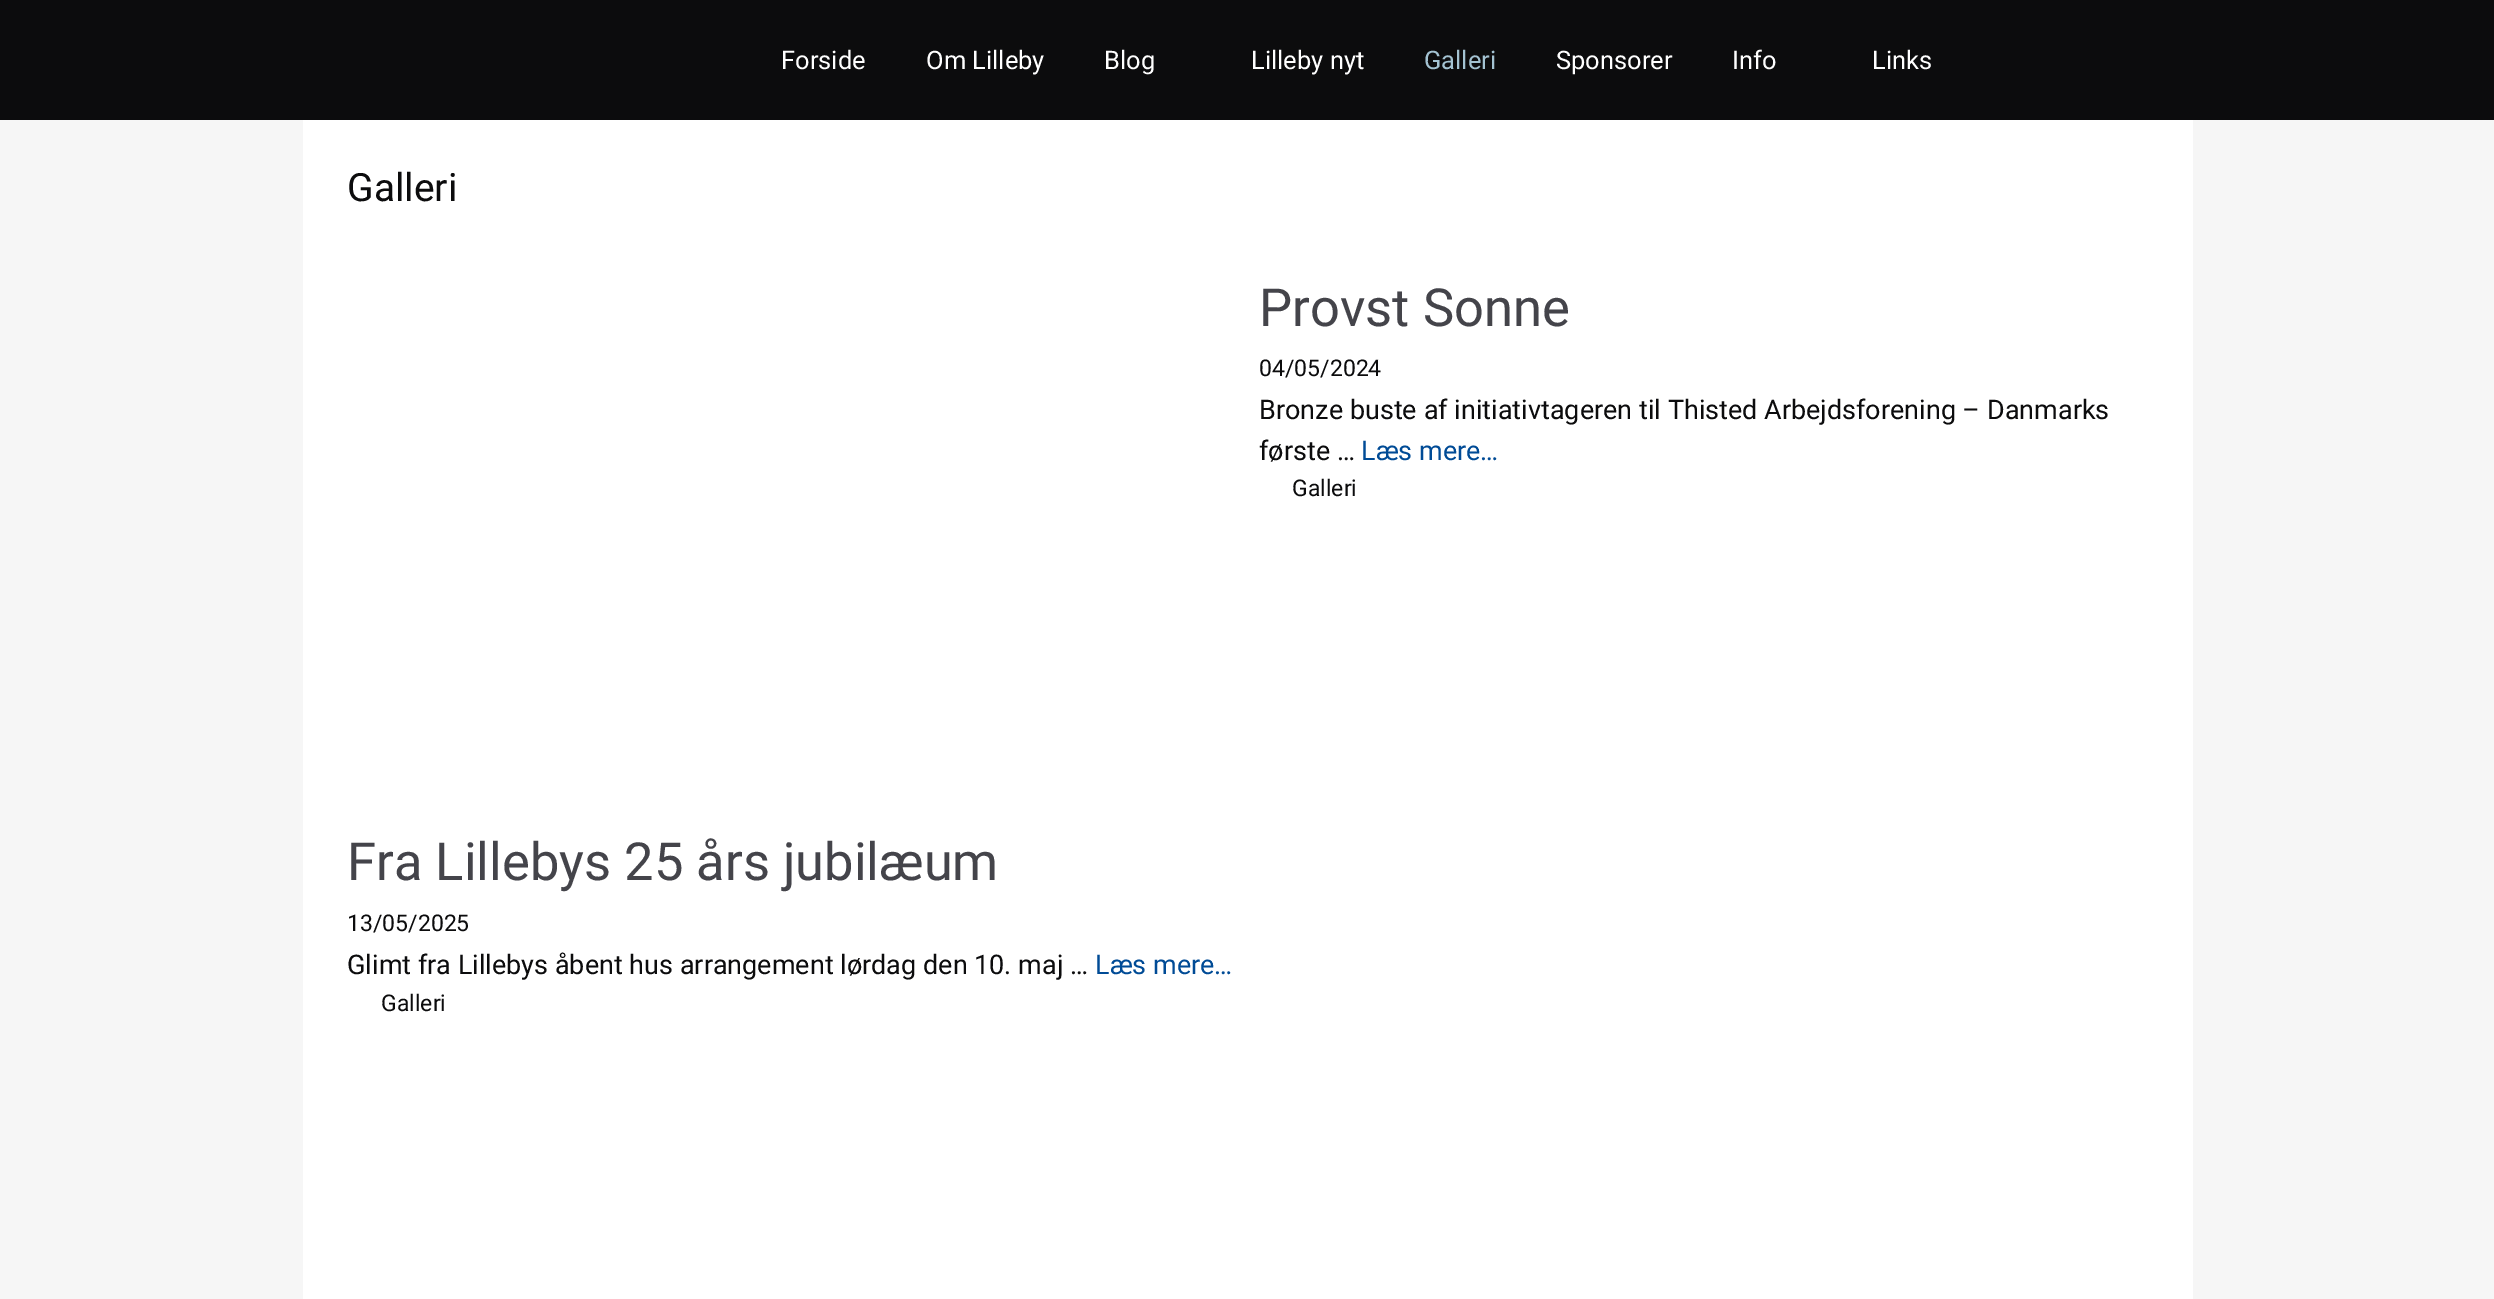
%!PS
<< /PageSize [2494 1299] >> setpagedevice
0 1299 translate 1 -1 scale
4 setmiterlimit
0.965 setgray
0 0 2494 1299 rectfill
0.047 0.047 0.051 setrgbcolor
0 0 2494 120 rectfill
/Roboto-Regular [25.5 0 0 -25.5 0 0] selectfont
1 setgray
781 69 moveto (Forside) show
926 69 moveto (Om Lilleby) show
1104 69 moveto (Blog) show
1251 69 moveto (Lilleby nyt) show
0.643 0.765 0.824 setrgbcolor
1424 69 moveto (Galleri) show
1 setgray
1556 69 moveto (Sponsorer) show
1732 69 moveto (Info) show
1872 69 moveto (Links) show
303 120 1890 1179 rectfill
/Roboto-Regular [39 0 0 -39 0 0] selectfont
0.047 0.047 0.051 setrgbcolor
347 201 moveto (Galleri) show
/Roboto-Regular [52.5 0 0 -52.5 0 0] selectfont
0.267 0.267 0.29 setrgbcolor
1259 326 moveto (Provst Sonne) show
/Roboto-Regular [23 0 0 -23 0 0] selectfont
0.047 0.047 0.051 setrgbcolor
1259 376 moveto (04/05/2024) show
/Roboto-Regular [27 0 0 -27 0 0] selectfont
1259 419 moveto (Bronze buste af initiativtageren til Thisted Arbejdsforening – Danmarks) show
1259 460 moveto (første …) show
0 0.294 0.588 setrgbcolor
1361 460 moveto (Læs mere…) show
/Roboto-Regular [23 0 0 -23 0 0] selectfont
0.047 0.047 0.051 setrgbcolor
1292 496 moveto (Galleri) show
/Roboto-Regular [52.5 0 0 -52.5 0 0] selectfont
0.267 0.267 0.29 setrgbcolor
347 880 moveto (Fra Lillebys 25 års jubilæum) show
/Roboto-Regular [23 0 0 -23 0 0] selectfont
0.047 0.047 0.051 setrgbcolor
347 931 moveto (13/05/2025) show
/Roboto-Regular [27 0 0 -27 0 0] selectfont
347 974 moveto (Glimt fra Lillebys åbent hus arrangement lørdag den 10. maj …) show
0 0.294 0.588 setrgbcolor
1095 974 moveto (Læs mere…) show
/Roboto-Regular [23 0 0 -23 0 0] selectfont
0.047 0.047 0.051 setrgbcolor
381 1011 moveto (Galleri) show
showpage
